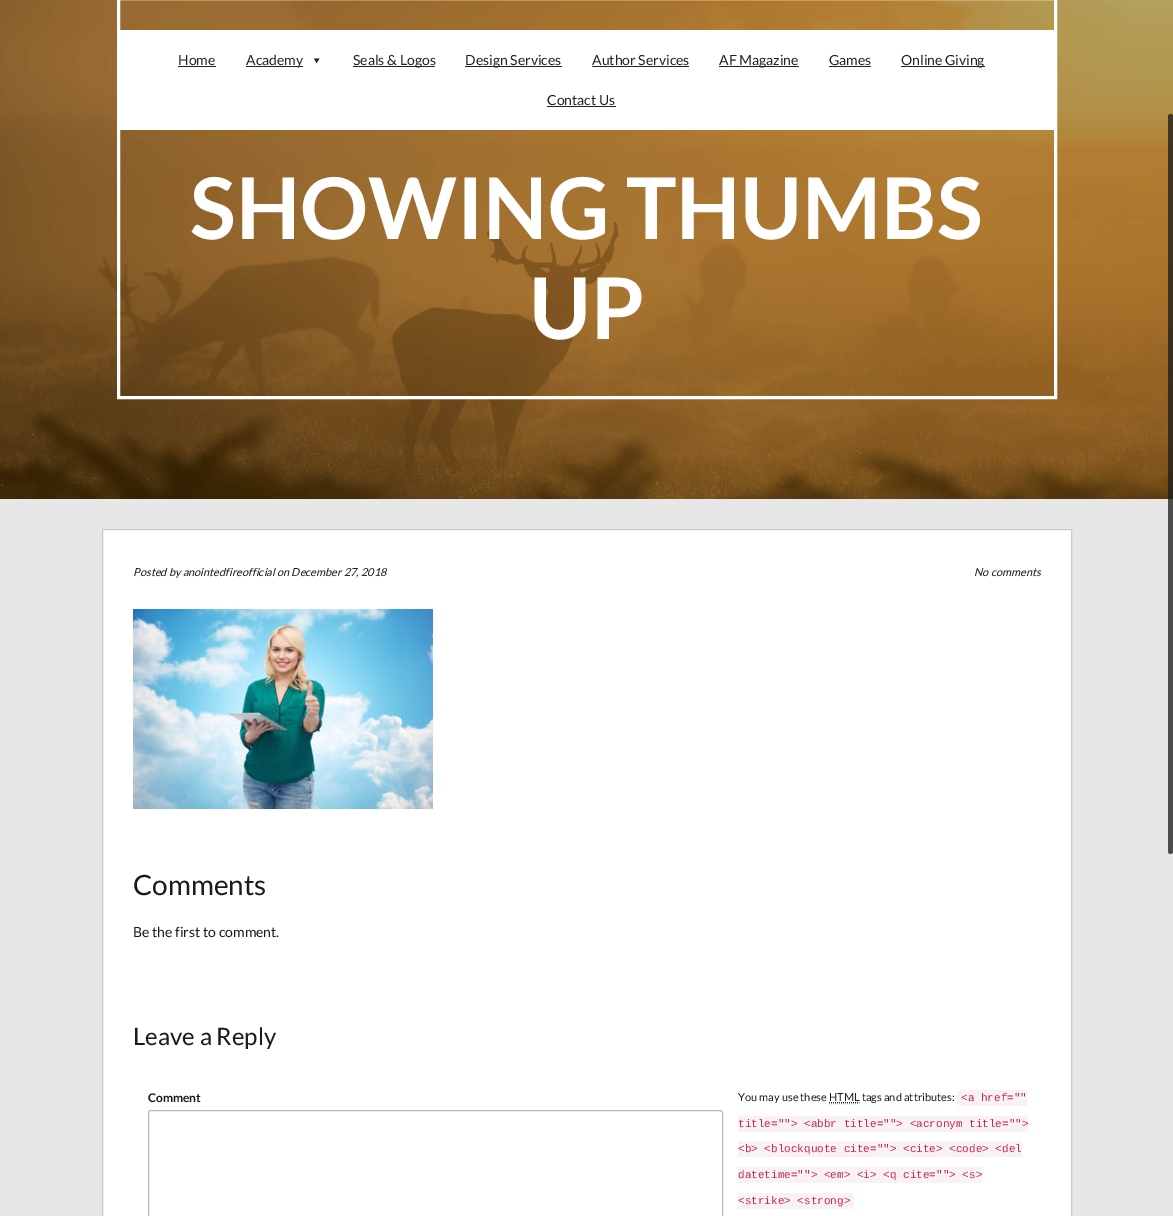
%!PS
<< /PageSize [1173 1216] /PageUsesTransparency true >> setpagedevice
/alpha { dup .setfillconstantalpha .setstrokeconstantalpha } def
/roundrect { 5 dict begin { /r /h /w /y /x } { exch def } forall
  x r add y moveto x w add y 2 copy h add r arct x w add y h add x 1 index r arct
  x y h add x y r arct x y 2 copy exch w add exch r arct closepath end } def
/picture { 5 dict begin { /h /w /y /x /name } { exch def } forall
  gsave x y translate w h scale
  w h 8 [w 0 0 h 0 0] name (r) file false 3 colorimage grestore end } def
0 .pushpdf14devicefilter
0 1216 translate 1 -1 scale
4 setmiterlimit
0.906 setgray
0 0 1173 1216 rectfill
(img1.rgb) 0 0 1173 499 picture
1 setgray
3 setlinewidth
118.5 -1.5 937 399 rectstroke
120 30 934 100 rectfill
/Lato-Regular [14 0 0 -14 0 0] selectfont
0.133 setgray
178 65 moveto (Home) show
178 66 38 1 rectfill
246 66 57 1 rectfill
246 65 moveto (Academy) show
newpath 319.5 58.5 moveto 316.5 63 lineto 314 58.5 lineto closepath fill
353 66 82 1 rectfill
353 65 moveto (Seals & Logos) show
465 66 97 1 rectfill
465 65 moveto (Design Services) show
592 65 moveto (Author Services) show
592 66 97 1 rectfill
719 66 80 1 rectfill
719 65 moveto (AF Magazine) show
829 65 moveto (Games) show
829 66 42 1 rectfill
901 66 84 1 rectfill
901 65 moveto (Online Giving) show
547 105 moveto (Contact Us) show
547 106 69 1 rectfill
/Lato-Bold [85 0 0 -85 0 0] selectfont
1 setgray
190 239 moveto (SHOWING THUMBS) show
529 339 moveto (UP) show
0.75 alpha
0.102 setgray
1168 114 5 740 2.5 roundrect fill
1 alpha
1 setgray
newpath 102.5 529.5 moveto 1071.5 529.5 lineto 1071.5 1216.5 lineto 102.5 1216.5 lineto closepath gsave fill grestore
0.792 setgray
1 setlinewidth
stroke
/Lato-Italic [11 0 0 -11 0 0] selectfont
0.102 setgray
133 576 moveto (Posted by anointedfireofficial on December 27, 2018) show
974 576 moveto (No comments) show
(img2.rgb) 133 609 300 200 picture
/Lato-Regular [28 0 0 -28 0 0] selectfont
133 895 moveto (Comments) show
/Lato-Regular [14 0 0 -14 0 0] selectfont
133 937 moveto (Be the first to comment.) show
/Lato-Regular [24 0 0 -24 0 0] selectfont
133 1045 moveto (Leave a Reply) show
/Lato-Bold [12 0 0 -12 0 0] selectfont
148 1102 moveto (Comment) show
0.714 setgray
148.5 1110.5 574 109 2.5 roundrect stroke
/Lato-Regular [11 0 0 -11 0 0] selectfont
0.102 setgray
738 1101 moveto (You may use these HTML tags and attributes:) show
0.976 0.949 0.957 setrgbcolor
newpath 961 1090 moveto 1027 1090 lineto 1027 1106 lineto 961 1106 lineto 959 1106 957 1104 957 1102 curveto 957 1094 lineto 957 1092 959 1090 961 1090 curveto closepath fill
/LiberationMono-Regular [11 0 0 -11 0 0] selectfont
0.78 0.145 0.306 setrgbcolor
961 1101 moveto (<a href="") show
0.102 setgray
[1 1] 0 setdash
newpath 829 1102.5 moveto 859.5 1102.5 lineto stroke
0.6 setgray
newpath 829 1103.5 moveto 859 1103.5 lineto stroke
0.976 0.949 0.957 setrgbcolor
738 1116 290 16 rectfill
0.78 0.145 0.306 setrgbcolor
738 1127 moveto (title=""> <abbr title=""> <acronym title="">) show
0.976 0.949 0.957 setrgbcolor
738 1141 284 16 rectfill
0.78 0.145 0.306 setrgbcolor
738 1152 moveto (<b> <blockquote cite=""> <cite> <code> <del) show
0.976 0.949 0.957 setrgbcolor
738 1167 244 16 rectfill
0.78 0.145 0.306 setrgbcolor
738 1178 moveto (datetime=""> <em> <i> <q cite=""> <s>) show
0.976 0.949 0.957 setrgbcolor
newpath 738 1193 moveto 850 1193 lineto 852 1193 854 1195 854 1197 curveto 854 1205 lineto 854 1207 852 1209 850 1209 curveto 738 1209 lineto closepath fill
0.78 0.145 0.306 setrgbcolor
738 1204 moveto (<strike> <strong>) show
.poppdf14devicefilter showpage
